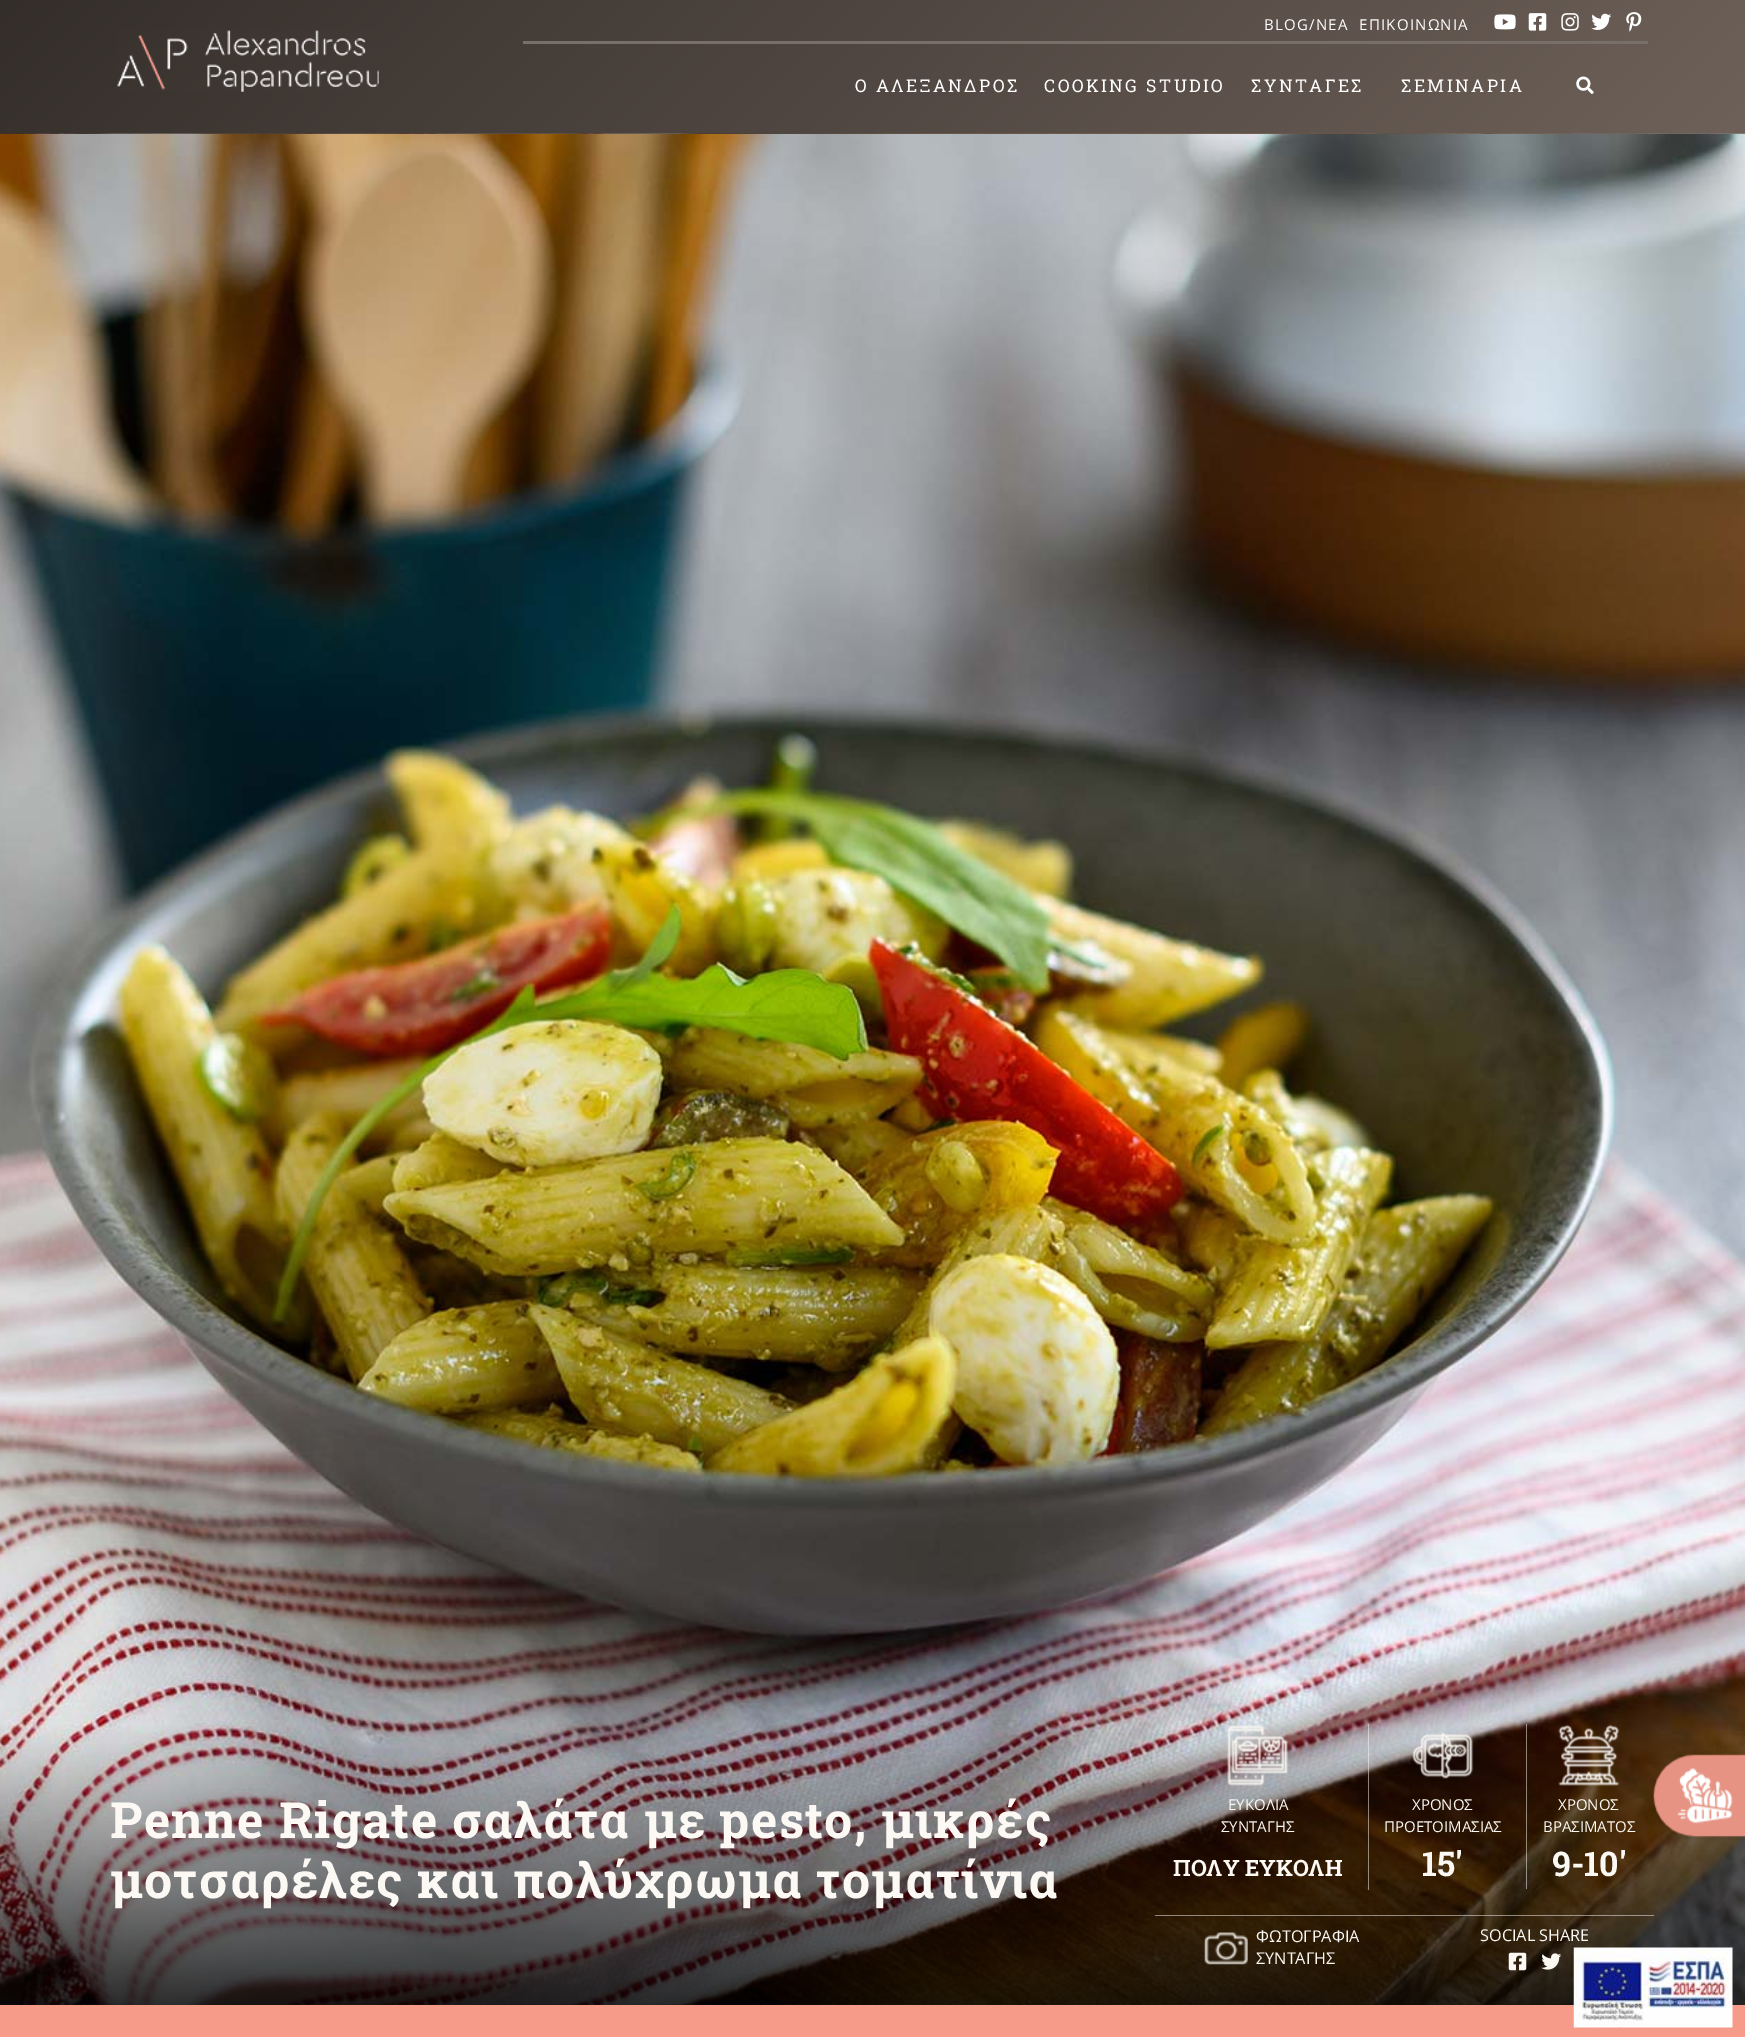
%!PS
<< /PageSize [1745 2037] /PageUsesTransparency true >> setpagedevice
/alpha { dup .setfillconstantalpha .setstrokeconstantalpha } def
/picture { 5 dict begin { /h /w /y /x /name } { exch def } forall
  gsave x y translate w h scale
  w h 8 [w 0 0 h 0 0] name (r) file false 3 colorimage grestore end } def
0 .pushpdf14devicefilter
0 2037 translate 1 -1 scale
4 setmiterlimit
1 setgray
0 0 1745 2037 rectfill
gsave newpath 0 0 moveto 1745 0 lineto 1745 134 lineto 0 134 lineto closepath clip newpath
<< /ShadingType 2 /ColorSpace /DeviceRGB /Coords [403 -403 1342 537] /Extend [true true] /Function << /FunctionType 2 /Domain [0 1] /C0 [0.204 0.18 0.165] /C1 [0.431 0.38 0.349] /N 1 >> >> shfill grestore
(img1.rgb) 117 30 262 62 picture
0.467 0.435 0.408 setrgbcolor
523 41 1125 3 rectfill
/OpenSans-Regular [15 0 0 -15 0 0] selectfont
1 setgray
1264 30 moveto 1.25 0 (BLOG/ΝΕΑ) ashow
1359 30 moveto 1.25 0 (ΕΠΙΚΟΙΝΩΝΙΑ) ashow
(img2.rgb) 1494 14 22 16 picture
(img3.rgb) 1528 13 19 18 picture
(img4.rgb) 1561 13 18 18 picture
(img5.rgb) 1591 13 21 17 picture
(img6.rgb) 1626 12 16 20 picture
/RobotoSlab-Regular [17.5 0 0 -17.5 0 0] selectfont
855 92 moveto 2.5 0 (Ο ΑΛΕΞΑΝΔΡΟΣ) ashow
1044 92 moveto 2.5 0 (COOKING STUDIO) ashow
1251 92 moveto 2.5 0 (ΣΥΝΤΑΓΕΣ) ashow
1401 92 moveto 2.5 0 (ΣΕΜΙΝΑΡΙΑ) ashow
(img7.rgb) 1576 76 18 18 picture
(img8.rgb) 0 133 1745 1872 picture
0.965 0.604 0.541 setrgbcolor
0 2005 1745 32 rectfill
/RobotoSlab-Bold [50 0 0 -50 0 0] selectfont
0.988 0.976 0.957 setrgbcolor
110 1838 moveto 1.25 0 (Penne Rigate σαλάτα με pesto, μικρές) ashow
110 1898 moveto 1.25 0 (μοτσαρέλες και πολύχρωμα τοματίνια) ashow
0.5 alpha
1155 1915 499 1 rectfill
1368 1724 1 166 rectfill
1 alpha
(img9.rgb) 1227 1725 62 61 picture
/OpenSans-Regular [15 0 0 -15 0 0] selectfont
1228 1810 moveto (ΕΥΚΟΛΙΑ) show
1221 1832 moveto (ΣΥΝΤΑΓΗΣ) show
/RobotoSlab-Bold [22.5 0 0 -22.5 0 0] selectfont
1173 1876 moveto (ΠΟΛΥ ΕΥΚΟΛΗ) show
0.5 alpha
1526 1724 1 165 rectfill
1 alpha
(img10.rgb) 1412 1732 62 47 picture
/OpenSans-Regular [15 0 0 -15 0 0] selectfont
1412 1810 moveto (ΧΡΟΝΟΣ) show
1384 1832 moveto (ΠΡΟΕΤΟΙΜΑΣΙΑΣ) show
/RobotoSlab-Bold [34 0 0 -34 0 0] selectfont
1422 1876 moveto (15') show
(img11.rgb) 1558 1724 62 62 picture
/OpenSans-Regular [15 0 0 -15 0 0] selectfont
1558 1810 moveto (ΧΡΟΝΟΣ) show
1543 1832 moveto (ΒΡΑΣΙΜΑΤΟΣ) show
/RobotoSlab-Bold [34 0 0 -34 0 0] selectfont
1552 1876 moveto (9-10') show
(img12.rgb) 1204 1932 44 33 picture
/OpenSans-Regular [16.25 0 0 -16.25 0 0] selectfont
1256 1942 moveto (ΦΩΤΟΓΡΑΦΙΑ) show
1256 1964 moveto (ΣΥΝΤΑΓΗΣ) show
1480 1941 moveto (SOCIAL SHARE) show
(img13.rgb) 1508 1952 19 19 picture
(img14.rgb) 1541 1953 21 17 picture
(img15.rgb) 1651 1751 94 89 picture
(img16.rgb) 1573 1947 160 81 picture
.poppdf14devicefilter showpage
